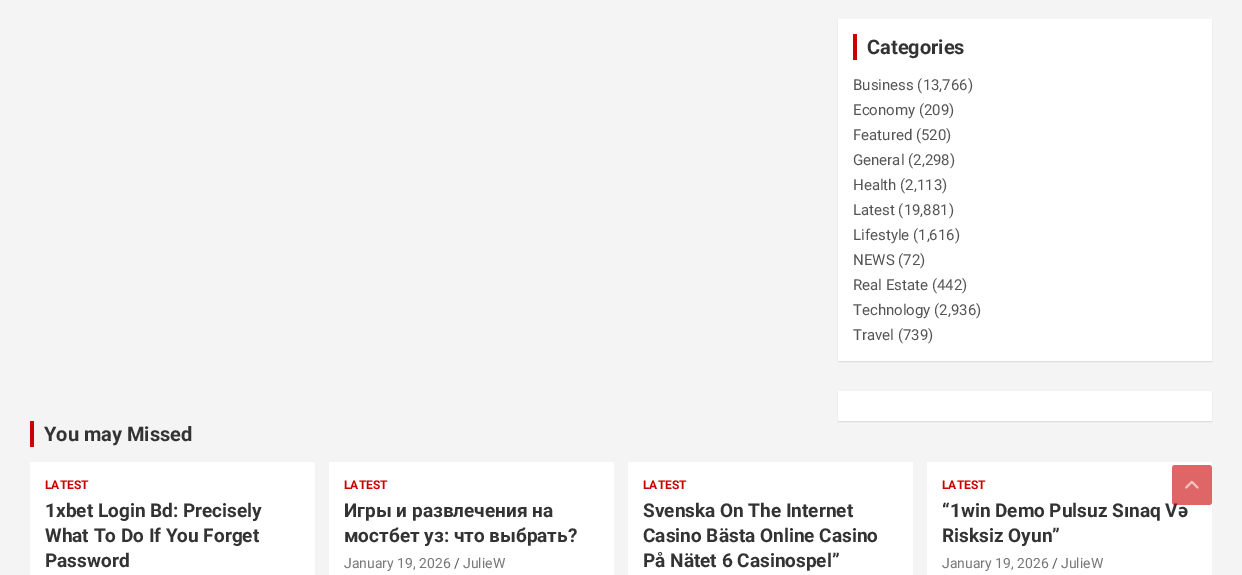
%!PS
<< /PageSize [1242 575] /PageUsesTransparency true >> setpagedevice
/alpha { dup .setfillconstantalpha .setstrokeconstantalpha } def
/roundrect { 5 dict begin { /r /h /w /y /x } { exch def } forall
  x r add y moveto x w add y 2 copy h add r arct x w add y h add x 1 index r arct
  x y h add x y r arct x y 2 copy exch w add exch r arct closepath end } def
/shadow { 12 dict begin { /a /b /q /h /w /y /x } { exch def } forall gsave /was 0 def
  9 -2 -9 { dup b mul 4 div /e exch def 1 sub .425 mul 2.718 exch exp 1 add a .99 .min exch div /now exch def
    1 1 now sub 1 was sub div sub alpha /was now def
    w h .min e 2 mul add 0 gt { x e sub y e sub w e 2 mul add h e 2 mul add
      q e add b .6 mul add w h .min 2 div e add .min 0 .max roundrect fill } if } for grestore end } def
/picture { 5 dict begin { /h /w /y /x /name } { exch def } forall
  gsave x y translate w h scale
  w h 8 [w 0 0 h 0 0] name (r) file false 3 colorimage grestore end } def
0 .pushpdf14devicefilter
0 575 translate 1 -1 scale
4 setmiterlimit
0.957 setgray
0 0 1242 575 rectfill
0 setgray
838 20 374 342 0 0.5 0.1 shadow
1 setgray
838 19 374 342 rectfill
0.784 0 0 setrgbcolor
853 34 4 26 rectfill
/Roboto-Bold [20 0 0 -20 0 0] selectfont
0.2 setgray
867 54 moveto (Categories) show
/Roboto-Regular [15 0 0 -15 0 0] selectfont
0.333 setgray
853 90 moveto (Business \(13,766\)) show
853 115 moveto (Economy \(209\)) show
853 140 moveto (Featured \(520\)) show
853 165 moveto (General \(2,298\)) show
853 190 moveto (Health \(2,113\)) show
853 215 moveto (Latest \(19,881\)) show
853 240 moveto (Lifestyle \(1,616\)) show
853 265 moveto (NEWS \(72\)) show
853 290 moveto (Real Estate \(442\)) show
853 315 moveto (Technology \(2,936\)) show
853 340 moveto (Travel \(739\)) show
0 setgray
838 392 374 30 0 0.5 0.1 shadow
1 setgray
838 391 374 30 rectfill
0.784 0 0 setrgbcolor
30 421 4 26 rectfill
/Roboto-Bold [20 0 0 -20 0 0] selectfont
0.2 setgray
44 441 moveto (You may Missed) show
1 setgray
30 462 285 113 rectfill
/Roboto-Bold [12 0 0 -12 0 0] selectfont
0.784 0 0 setrgbcolor
45 489 moveto (LATEST) show
/Roboto-Bold [19 0 0 -19 0 0] selectfont
0.2 setgray
45 517 moveto (1xbet Login Bd: Precisely) show
45 542 moveto (What To Do If You Forget) show
45 567 moveto (Password) show
1 setgray
329 462 285 113 rectfill
/Roboto-Bold [12 0 0 -12 0 0] selectfont
0.784 0 0 setrgbcolor
344 489 moveto (LATEST) show
/Roboto-Bold [19 0 0 -19 0 0] selectfont
0.2 setgray
344 517 moveto (Игры и развлечения на) show
344 542 moveto (мостбет уз: что выбрать?) show
/Roboto-Regular [14 0 0 -14 0 0] selectfont
0.467 setgray
344 568 moveto (January 19, 2026) show
0.333 setgray
454 568 moveto (/) show
0.467 setgray
463 568 moveto (JulieW) show
1 setgray
628 462 285 113 rectfill
/Roboto-Bold [12 0 0 -12 0 0] selectfont
0.784 0 0 setrgbcolor
643 489 moveto (LATEST) show
/Roboto-Bold [19 0 0 -19 0 0] selectfont
0.2 setgray
643 517 moveto (Svenska On The Internet) show
643 542 moveto (Casino Bästa Online Casino) show
643 567 moveto (På Nätet 6 Casinospel”) show
1 setgray
927 462 285 113 rectfill
/Roboto-Bold [12 0 0 -12 0 0] selectfont
0.784 0 0 setrgbcolor
942 489 moveto (LATEST) show
/Roboto-Bold [19 0 0 -19 0 0] selectfont
0.2 setgray
942 517 moveto (“1win Demo Pulsuz Sınaq Və) show
942 542 moveto (Risksiz Oyun”) show
/Roboto-Regular [14 0 0 -14 0 0] selectfont
0.467 setgray
942 568 moveto (January 19, 2026) show
0.333 setgray
1052 568 moveto (/) show
0.467 setgray
1061 568 moveto (JulieW) show
0.6 alpha
0.784 0 0 setrgbcolor
1172 465 40 40 3 roundrect fill
1 alpha
(img1.rgb) 1185 480 14 9 picture
.poppdf14devicefilter showpage
